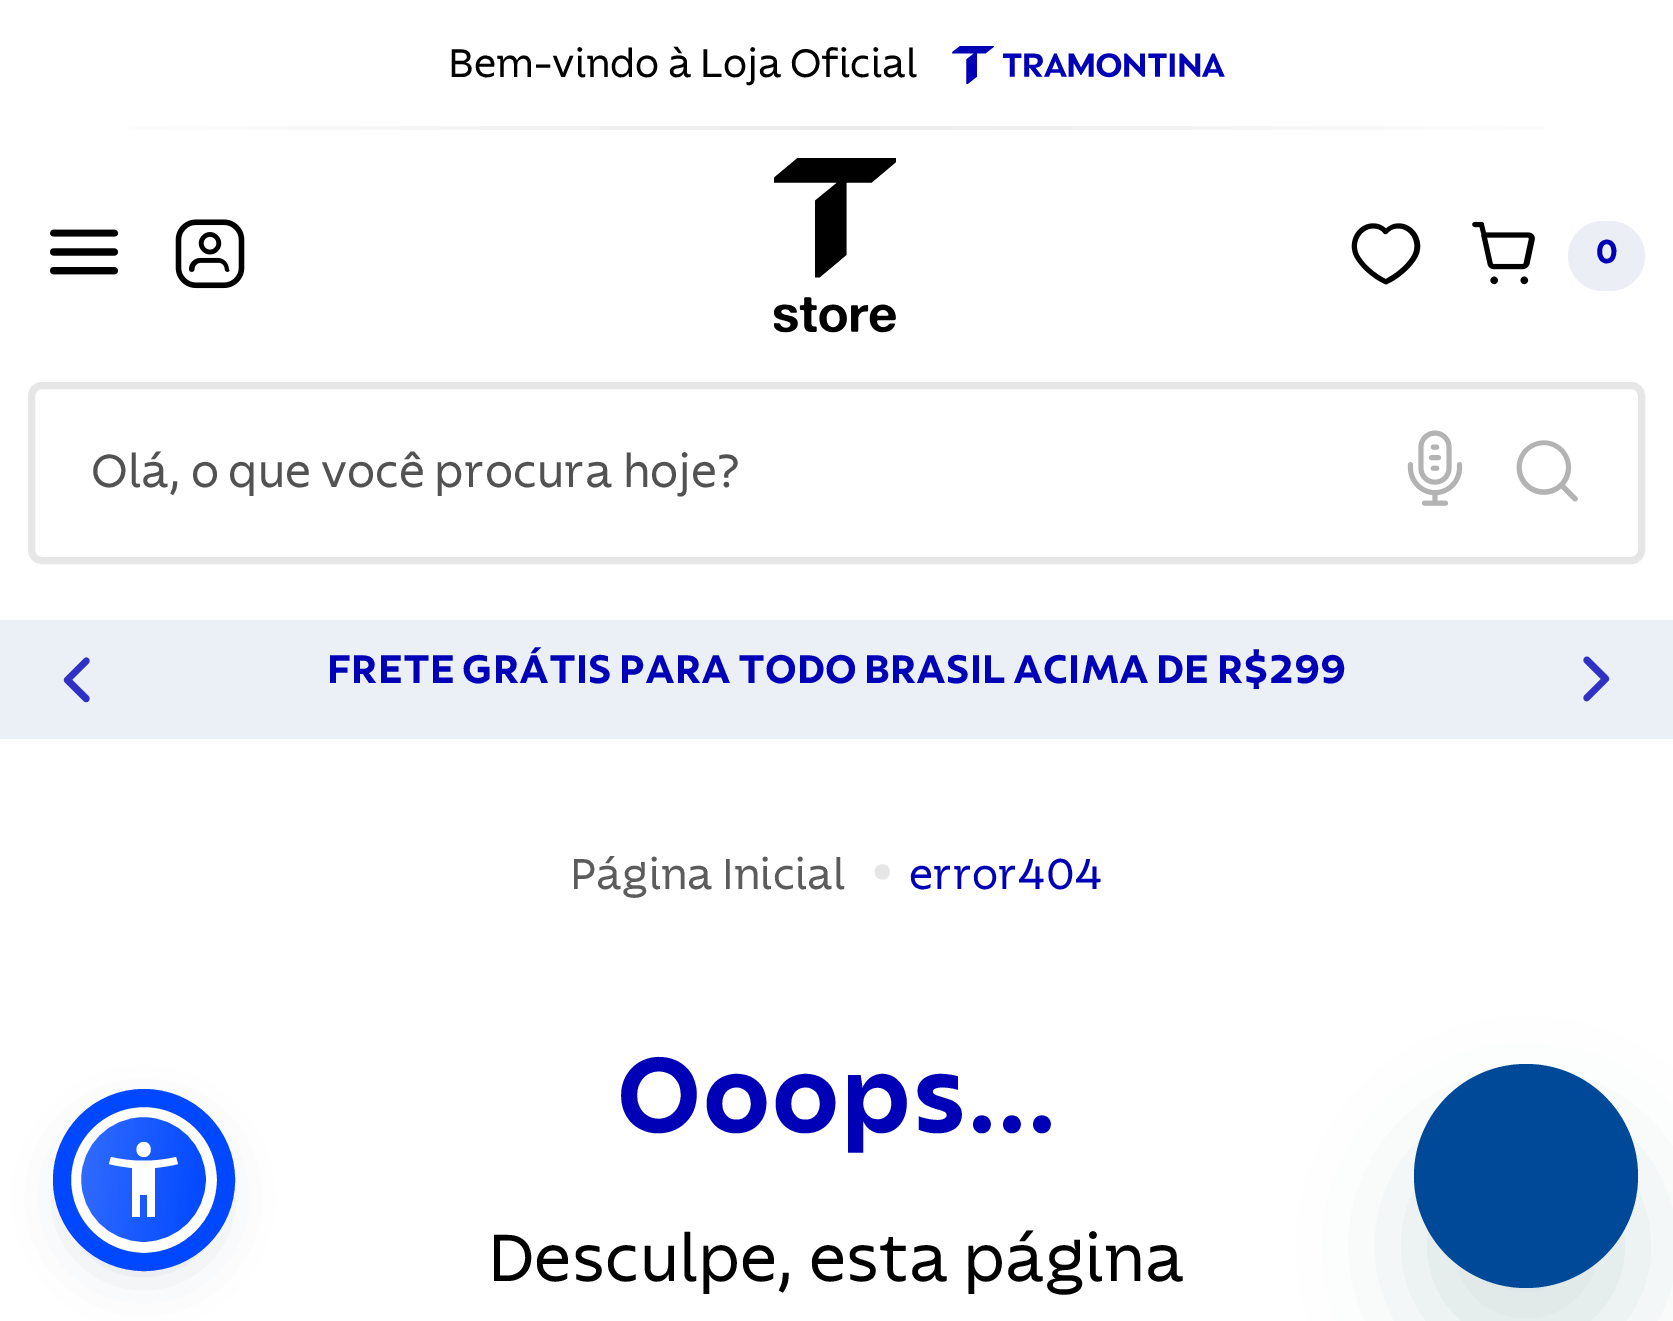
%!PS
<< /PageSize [1673 1321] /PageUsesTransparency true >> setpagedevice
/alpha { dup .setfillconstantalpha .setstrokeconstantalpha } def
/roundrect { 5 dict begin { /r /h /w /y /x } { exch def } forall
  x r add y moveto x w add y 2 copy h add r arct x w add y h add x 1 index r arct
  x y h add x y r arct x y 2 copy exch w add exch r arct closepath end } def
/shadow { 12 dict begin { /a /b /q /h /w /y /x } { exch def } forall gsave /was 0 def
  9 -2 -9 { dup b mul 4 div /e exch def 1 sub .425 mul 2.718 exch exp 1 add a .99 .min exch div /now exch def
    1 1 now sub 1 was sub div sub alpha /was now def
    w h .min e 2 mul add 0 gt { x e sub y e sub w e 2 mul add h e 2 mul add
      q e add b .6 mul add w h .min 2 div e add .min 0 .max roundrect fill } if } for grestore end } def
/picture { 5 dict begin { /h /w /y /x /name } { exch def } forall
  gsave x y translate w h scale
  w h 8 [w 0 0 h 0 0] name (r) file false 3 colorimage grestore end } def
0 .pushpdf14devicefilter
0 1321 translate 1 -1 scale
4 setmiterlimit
1 setgray
0 0 1673 1321 rectfill
/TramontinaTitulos-Regular [42 0 0 -42 0 0] selectfont
0 setgray
448 77 moveto (Bem-vindo à Loja Oficial) show
(img1.rgb) 952 46 273 38 picture
gsave newpath 129 126 moveto 1544 126 lineto 1544 130 lineto 129 130 lineto closepath clip newpath
<< /ShadingType 2 /ColorSpace /DeviceRGB /Coords [28 128 1645 128] /Extend [true true] /Function << /FunctionType 3 /Domain [0 1] /Functions [<< /FunctionType 2 /Domain [0 1] /C0 [1 1 1] /C1 [0.922 0.922 0.922] /N 1 >> << /FunctionType 2 /Domain [0 1] /C0 [0.922 0.922 0.922] /C1 [1 1 1] /N 1 >>] /Bounds [0.5] /Encode [0 1 0 1] >> >> shfill grestore
(img2.rgb) 50 229 68 46 picture
(img3.rgb) 175 219 70 70 picture
(img4.rgb) 774 158 122 175 picture
(img5.rgb) 1351 223 70 62 picture
(img6.rgb) 1472 221 63 64 picture
0.922 0.933 0.961 setrgbcolor
1568 221 77 70 35 roundrect fill
/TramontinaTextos-Bold [35 0 0 -35 0 0] selectfont
0 0 0.718 setrgbcolor
1596 263 moveto (0) show
0.902 setgray
7 setlinewidth
31.5 385.5 1610 175 10.5 roundrect stroke
/TramontinaTitulos-Regular [49 0 0 -49 0 0] selectfont
0.322 setgray
91 487 moveto (Olá, o que você procura hoje?) show
(img7.rgb) 1407 430 56 76 picture
(img8.rgb) 1516 440 62 62 picture
0.922 0.937 0.965 setrgbcolor
0 620 1673 119 rectfill
(img9.rgb) 63 657 27 46 picture
/TramontinaTitulos-Bold [42 0 0 -42 0 0] selectfont
0 0 0.718 setrgbcolor
327 683 moveto (FRETE GRÁTIS PARA TODO BRASIL ACIMA DE R$299) show
(img10.rgb) 1583 656 27 46 picture
/TramontinaTitulos-Regular [45.5 0 0 -45.5 0 0] selectfont
0.361 setgray
570 889 moveto (Página Inicial) show
/TramontinaTitulos-Regular [73 0 0 -73 0 0] selectfont
0.902 setgray
869 896 moveto (•) show
/TramontinaTitulos-Regular [45.5 0 0 -45.5 0 0] selectfont
0 0 0.718 setrgbcolor
909 889 moveto (error404) show
/TramontinaTextos-Bold [112 0 0 -112 0 0] selectfont
616 1132 moveto (Ooops...) show
/TramontinaTitulos-Regular [70 0 0 -70 0 0] selectfont
0 setgray
488 1281 moveto (Desculpe, esta página) show
0.365 0.392 0.58 setrgbcolor
70 1113 147 147 73.5 7 0.2 shadow
0.145 0.173 0.38 setrgbcolor
70 1124 147 147 73.5 26 0.15 shadow
gsave
70 1106 147 147 73.5 roundrect clip newpath
gsave newpath 81 1117 moveto 207 1117 lineto 207 1243 lineto 81 1243 lineto closepath clip newpath
<< /ShadingType 2 /ColorSpace /DeviceRGB /Coords [75 1172 212 1187] /Extend [true true] /Function << /FunctionType 2 /Domain [0 1] /C0 [0.196 0.424 1] /C1 [0 0.282 1] /N 1 >> >> shfill grestore
grestore
1 setgray
11 setlinewidth
newpath 143.5 1179.5 68 0 360 arc closepath stroke
0 0.282 1 setrgbcolor
18 setlinewidth
newpath 144 1180 82 0 360 arc closepath stroke
1 setgray
newpath 176 1157 moveto 155 1162 132 1162 111 1157 curveto 109 1164 lineto 116 1166 125 1167 132 1168 curveto 132 1217 lineto 140 1217 lineto 140 1195 lineto 147 1195 lineto 147 1217 lineto 155 1217 lineto 155 1168 lineto 162 1167 171 1166 178 1164 curveto closepath 144 1157 moveto 153 1157 153 1142 144 1142 curveto 134 1142 134 1157 144 1157 curveto closepath fill
0.09 0.286 0.302 setrgbcolor
1414 1134 224 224 112 52.5 0.15 shadow
0 0.286 0.596 setrgbcolor
newpath 1526 1176 112 0 360 arc closepath fill
.poppdf14devicefilter showpage
